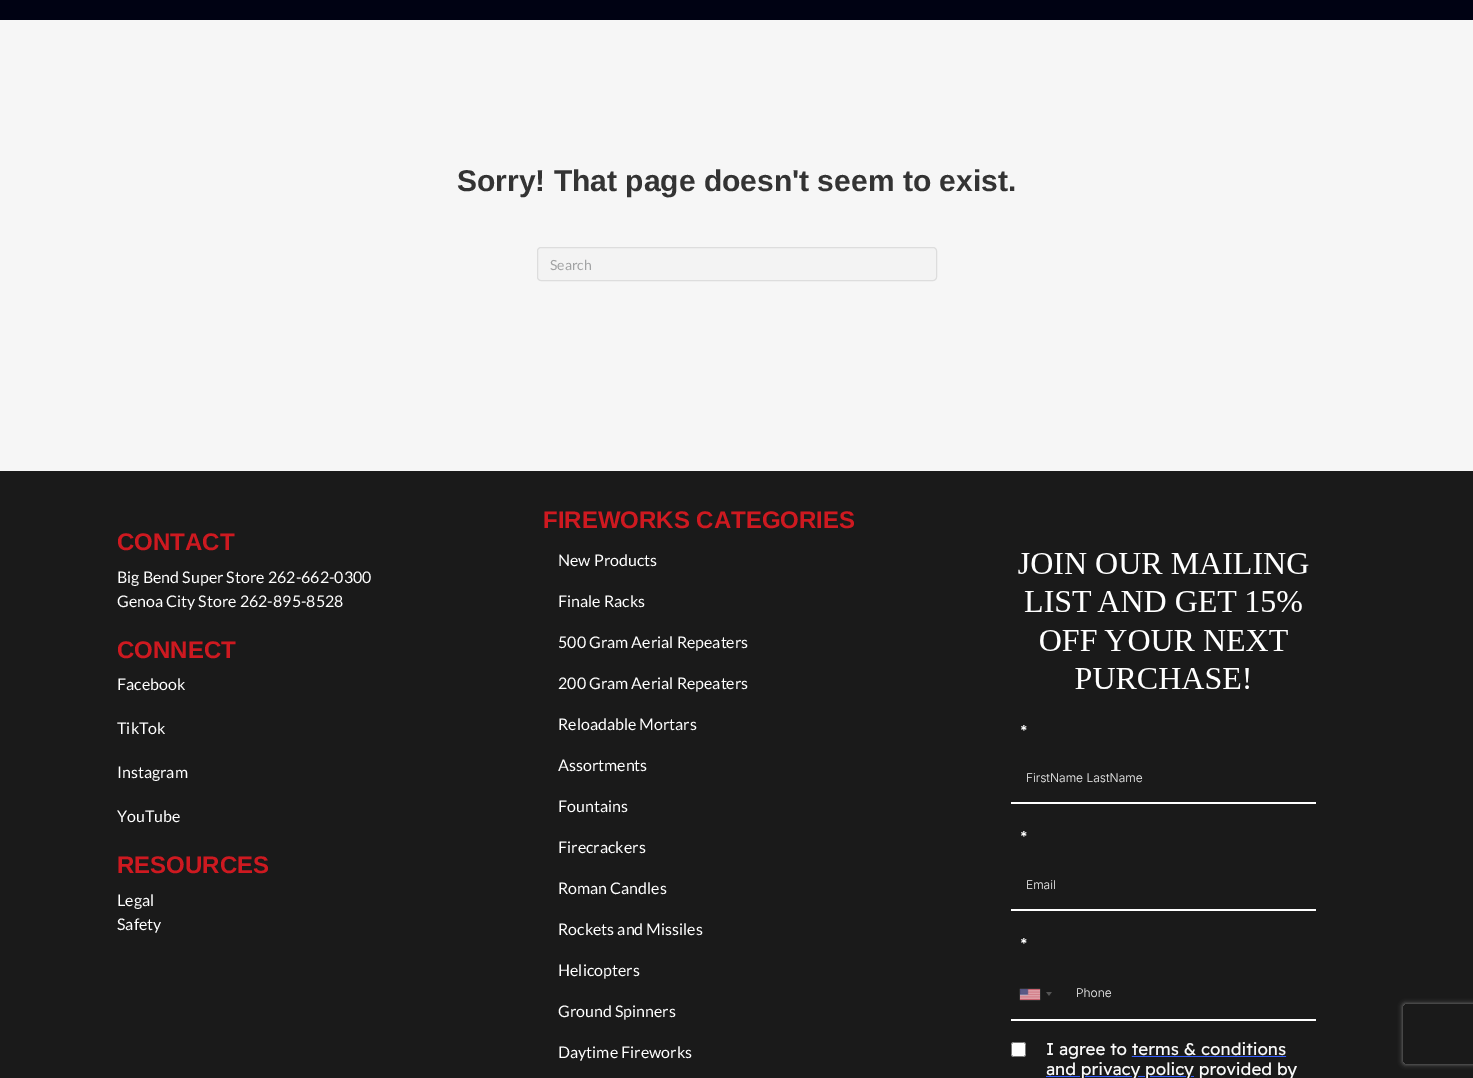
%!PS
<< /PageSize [1473 1078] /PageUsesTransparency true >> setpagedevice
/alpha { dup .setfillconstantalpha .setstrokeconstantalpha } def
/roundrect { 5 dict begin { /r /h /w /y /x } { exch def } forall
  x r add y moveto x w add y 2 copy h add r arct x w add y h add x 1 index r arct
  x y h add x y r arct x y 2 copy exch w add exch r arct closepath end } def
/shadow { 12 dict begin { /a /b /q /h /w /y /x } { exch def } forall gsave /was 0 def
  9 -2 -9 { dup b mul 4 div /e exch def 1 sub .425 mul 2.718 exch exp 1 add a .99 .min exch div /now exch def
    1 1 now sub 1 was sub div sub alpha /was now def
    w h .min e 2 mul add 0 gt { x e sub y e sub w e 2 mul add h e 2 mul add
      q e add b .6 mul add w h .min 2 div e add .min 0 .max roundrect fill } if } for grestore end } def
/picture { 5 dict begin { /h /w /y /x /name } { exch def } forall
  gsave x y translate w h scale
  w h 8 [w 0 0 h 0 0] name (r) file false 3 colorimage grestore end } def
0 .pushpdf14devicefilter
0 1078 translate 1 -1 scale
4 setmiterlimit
0 0.008 0.075 setrgbcolor
0 0 1473 1078 rectfill
0.965 setgray
0 20 1473 451 rectfill
/LiberationSans-Bold [30 0 0 -30 0 0] selectfont
0.2 setgray
457 191 moveto (Sorry! That page doesn't seem to exist.) show
0.953 setgray
537.5 247.5 399 33 3.5 roundrect gsave fill grestore
0.867 setgray
stroke
/Lato-Regular [14 0 0 -14 0 0] selectfont
0.635 0.639 0.643 setrgbcolor
550 270 moveto (Search) show
0.102 setgray
0 471 1473 607 rectfill
/LiberationSans-Bold [24 0 0 -24 0 0] selectfont
0.808 0.098 0.125 setrgbcolor
117 550 moveto (CONTACT) show
/Lato-Regular [16 0 0 -16 0 0] selectfont
1 setgray
117 583 moveto (Big Bend Super Store 262-662-0300) show
117 607 moveto (Genoa City Store 262-895-8528) show
/LiberationSans-Bold [24 0 0 -24 0 0] selectfont
0.808 0.098 0.125 setrgbcolor
117 658 moveto (CONNECT) show
/Lato-Regular [16 0 0 -16 0 0] selectfont
1 setgray
117 690 moveto (Facebook) show
117 734 moveto (TikTok) show
117 778 moveto (Instagram) show
117 822 moveto (YouTube) show
/LiberationSans-Bold [24 0 0 -24 0 0] selectfont
0.808 0.098 0.125 setrgbcolor
117 873 moveto (RESOURCES) show
/Lato-Regular [16 0 0 -16 0 0] selectfont
1 setgray
117 906 moveto (Legal) show
117 930 moveto (Safety) show
/LiberationSans-Bold [24 0 0 -24 0 0] selectfont
0.808 0.098 0.125 setrgbcolor
543 528 moveto (FIREWORKS CATEGORIES) show
/Lato-Regular [16 0 0 -16 0 0] selectfont
1 setgray
558 566 moveto (New Products) show
558 607 moveto (Finale Racks) show
558 648 moveto (500 Gram Aerial Repeaters) show
558 689 moveto (200 Gram Aerial Repeaters) show
558 730 moveto (Reloadable Mortars) show
558 771 moveto (Assortments) show
558 812 moveto (Fountains) show
558 853 moveto (Firecrackers) show
558 894 moveto (Roman Candles) show
558 935 moveto (Rockets and Missiles) show
558 976 moveto (Helicopters) show
558 1017 moveto (Ground Spinners) show
558 1058 moveto (Daytime Fireworks) show
(img1.rgb) 1011 553 305 525 picture
gsave
newpath 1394 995 moveto 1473 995 lineto 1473 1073 lineto 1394 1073 lineto closepath 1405 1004 moveto 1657 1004 lineto 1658 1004 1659 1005 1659 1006 curveto 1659 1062 lineto 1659 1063 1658 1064 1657 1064 curveto 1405 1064 lineto 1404 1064 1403 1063 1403 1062 curveto 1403 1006 lineto 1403 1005 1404 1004 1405 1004 curveto closepath eoclip newpath
0.502 setgray
1403 1004 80 60 2 2.5 1 shadow
grestore
.poppdf14devicefilter showpage
